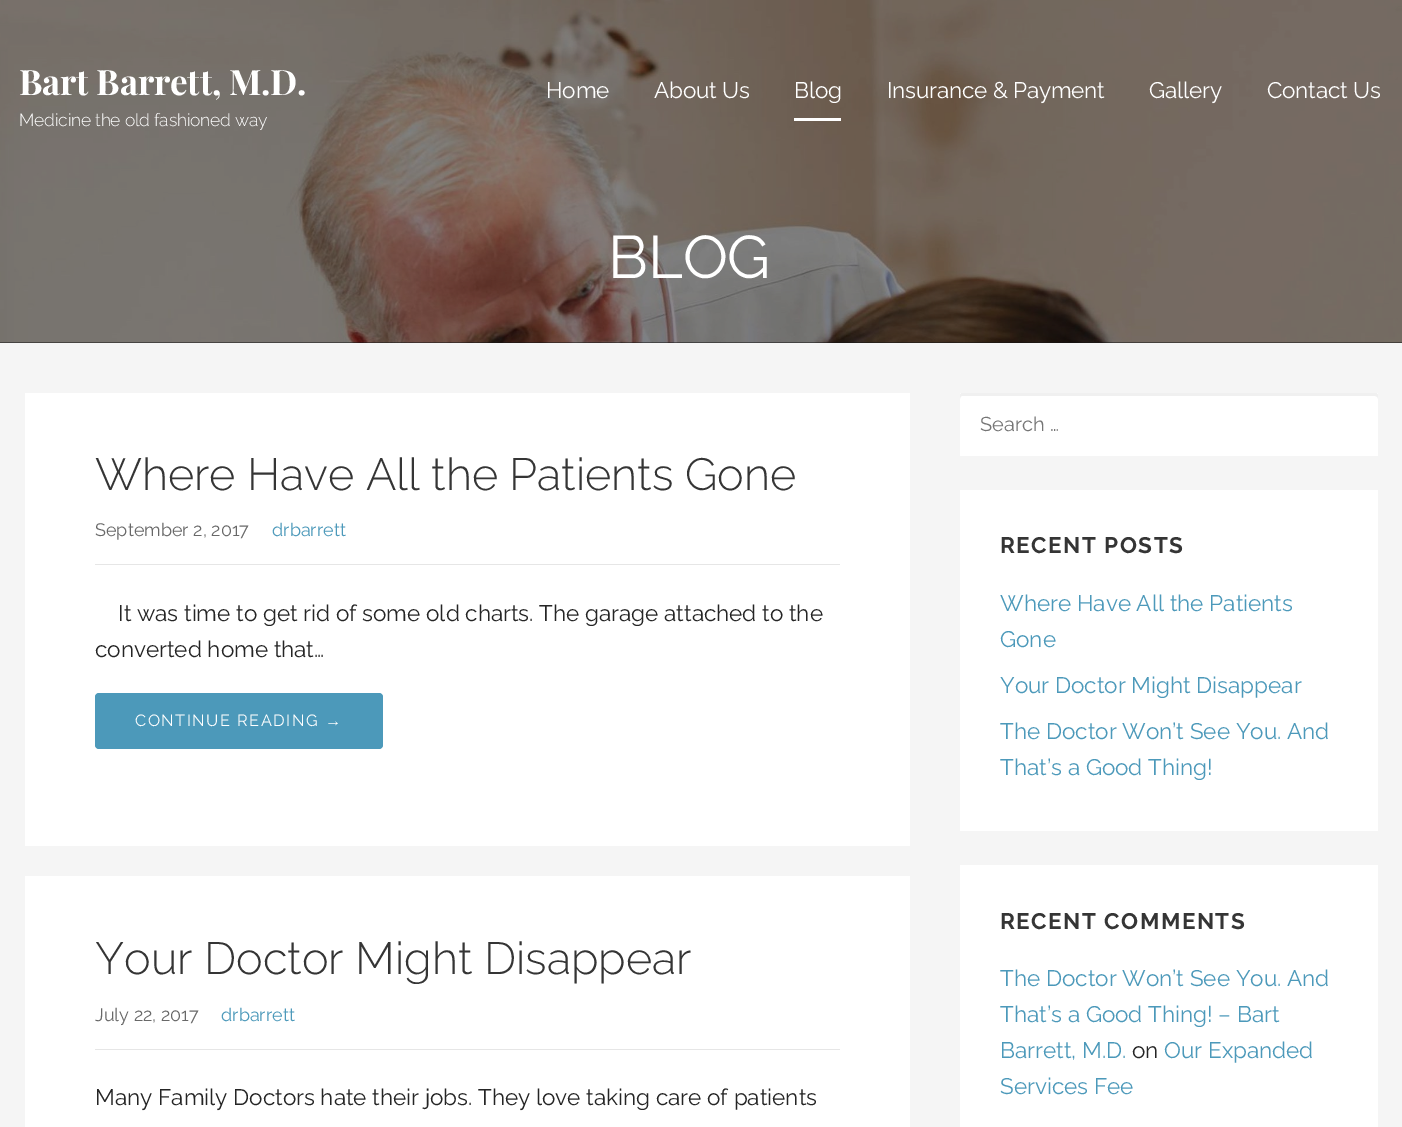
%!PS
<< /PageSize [1402 1127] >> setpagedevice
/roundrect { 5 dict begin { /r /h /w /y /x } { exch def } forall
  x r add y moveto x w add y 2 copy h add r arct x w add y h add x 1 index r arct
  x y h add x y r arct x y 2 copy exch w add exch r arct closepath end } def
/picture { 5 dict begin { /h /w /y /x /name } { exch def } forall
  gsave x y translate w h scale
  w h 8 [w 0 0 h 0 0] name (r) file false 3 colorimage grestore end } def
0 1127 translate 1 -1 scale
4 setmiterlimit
0.961 setgray
0 0 1402 1127 rectfill
0.078 setgray
0 342 1402 1 rectfill
(img1.rgb) 0 0 1402 343 picture
/PlayfairDisplay-Bold [35 0 0 -35 0 0] selectfont
1 setgray
19 95 moveto -0.2 0 (Bart Barrett, M.D.) ashow
/Raleway-Light [17.5 0 0 -17.5 0 0] selectfont
19 126 moveto -0.2 0 (Medicine the old fashioned way) ashow
/Raleway-Regular [22.5 0 0 -22.5 0 0] selectfont
546 98 moveto -0.2 0 (Home) ashow
654 98 moveto -0.2 0 (About Us) ashow
794 118 47 3 rectfill
794 98 moveto -0.2 0 (Blog) ashow
887 98 moveto -0.2 0 (Insurance & Payment) ashow
1149 98 moveto -0.2 0 (Gallery) ashow
1267 98 moveto -0.2 0 (Contact Us) ashow
/Raleway-Regular [60 0 0 -60 0 0] selectfont
608 278 moveto -0.2 0 (BLOG) ashow
25 393 885 453 rectfill
/Raleway-Light [45 0 0 -45 0 0] selectfont
0.208 setgray
95 490 moveto (Where Have All the Patients Gone) show
0.902 setgray
95 564 745 1 rectfill
/Raleway-Regular [18 0 0 -18 0 0] selectfont
0.408 setgray
95 536 moveto (September 2, 2017) show
0.298 0.6 0.729 setrgbcolor
272 536 moveto (drbarrett) show
/Raleway-Regular [22.5 0 0 -22.5 0 0] selectfont
0.145 setgray
118 621 moveto (It was time to get rid of some old charts. The garage attached to the) show
95 657 moveto (converted home that…) show
0.298 0.6 0.729 setrgbcolor
95 693 288 56 4 roundrect fill
/Raleway-Regular [16.25 0 0 -16.25 0 0] selectfont
1 setgray
135 726 moveto 1.5 0 (CONTINUE READING) ashow
/LiberationSans-Regular [16.25 0 0 -16.25 0 0] selectfont
325 726 moveto 1.5 0 (→) ashow
25 876 885 251 rectfill
/Raleway-Light [45 0 0 -45 0 0] selectfont
0.208 setgray
95 974 moveto (Your Doctor Might Disappear) show
0.902 setgray
95 1049 745 1 rectfill
/Raleway-Regular [18 0 0 -18 0 0] selectfont
0.408 setgray
95 1021 moveto (July 22, 2017) show
0.298 0.6 0.729 setrgbcolor
221 1021 moveto (drbarrett) show
/Raleway-Regular [22.5 0 0 -22.5 0 0] selectfont
0.145 setgray
95 1105 moveto (Many Family Doctors hate their jobs. They love taking care of patients) show
1 setgray
960 393 418 63 rectfill
0.941 setgray
newpath 962 396 moveto 1375 396 lineto 1376 396 1378 397 1378 399 curveto 1378 396 lineto 1378 394 1377 393 1376 393 curveto 962 393 lineto 961 393 960 394 960 396 curveto 960 399 lineto 960 397 961 396 962 396 curveto closepath fill
/Raleway-Regular [20 0 0 -20 0 0] selectfont
0.459 setgray
980 431 moveto (Search …) show
1 setgray
960 490 418 341 rectfill
/Raleway-Bold [22.5 0 0 -22.5 0 0] selectfont
0.208 setgray
1000 553 moveto 1.5 0 (RECENT POSTS) ashow
/Raleway-Regular [22.5 0 0 -22.5 0 0] selectfont
0.298 0.6 0.729 setrgbcolor
1000 611 moveto (Where Have All the Patients) show
1000 647 moveto (Gone) show
1000 693 moveto (Your Doctor Might Disappear) show
1000 739 moveto (The Doctor Won’t See You. And) show
1000 775 moveto (That’s a Good Thing!) show
1 setgray
960 865 418 262 rectfill
/Raleway-Bold [22.5 0 0 -22.5 0 0] selectfont
0.208 setgray
1000 929 moveto 1.5 0 (RECENT COMMENTS) ashow
/Raleway-Regular [22.5 0 0 -22.5 0 0] selectfont
0.298 0.6 0.729 setrgbcolor
1000 986 moveto (The Doctor Won’t See You. And) show
1000 1022 moveto (That’s a Good Thing! – Bart) show
1000 1058 moveto (Barrett, M.D.) show
0.145 setgray
1132 1058 moveto (on) show
0.298 0.6 0.729 setrgbcolor
1164 1058 moveto (Our Expanded) show
1000 1094 moveto (Services Fee) show
showpage
